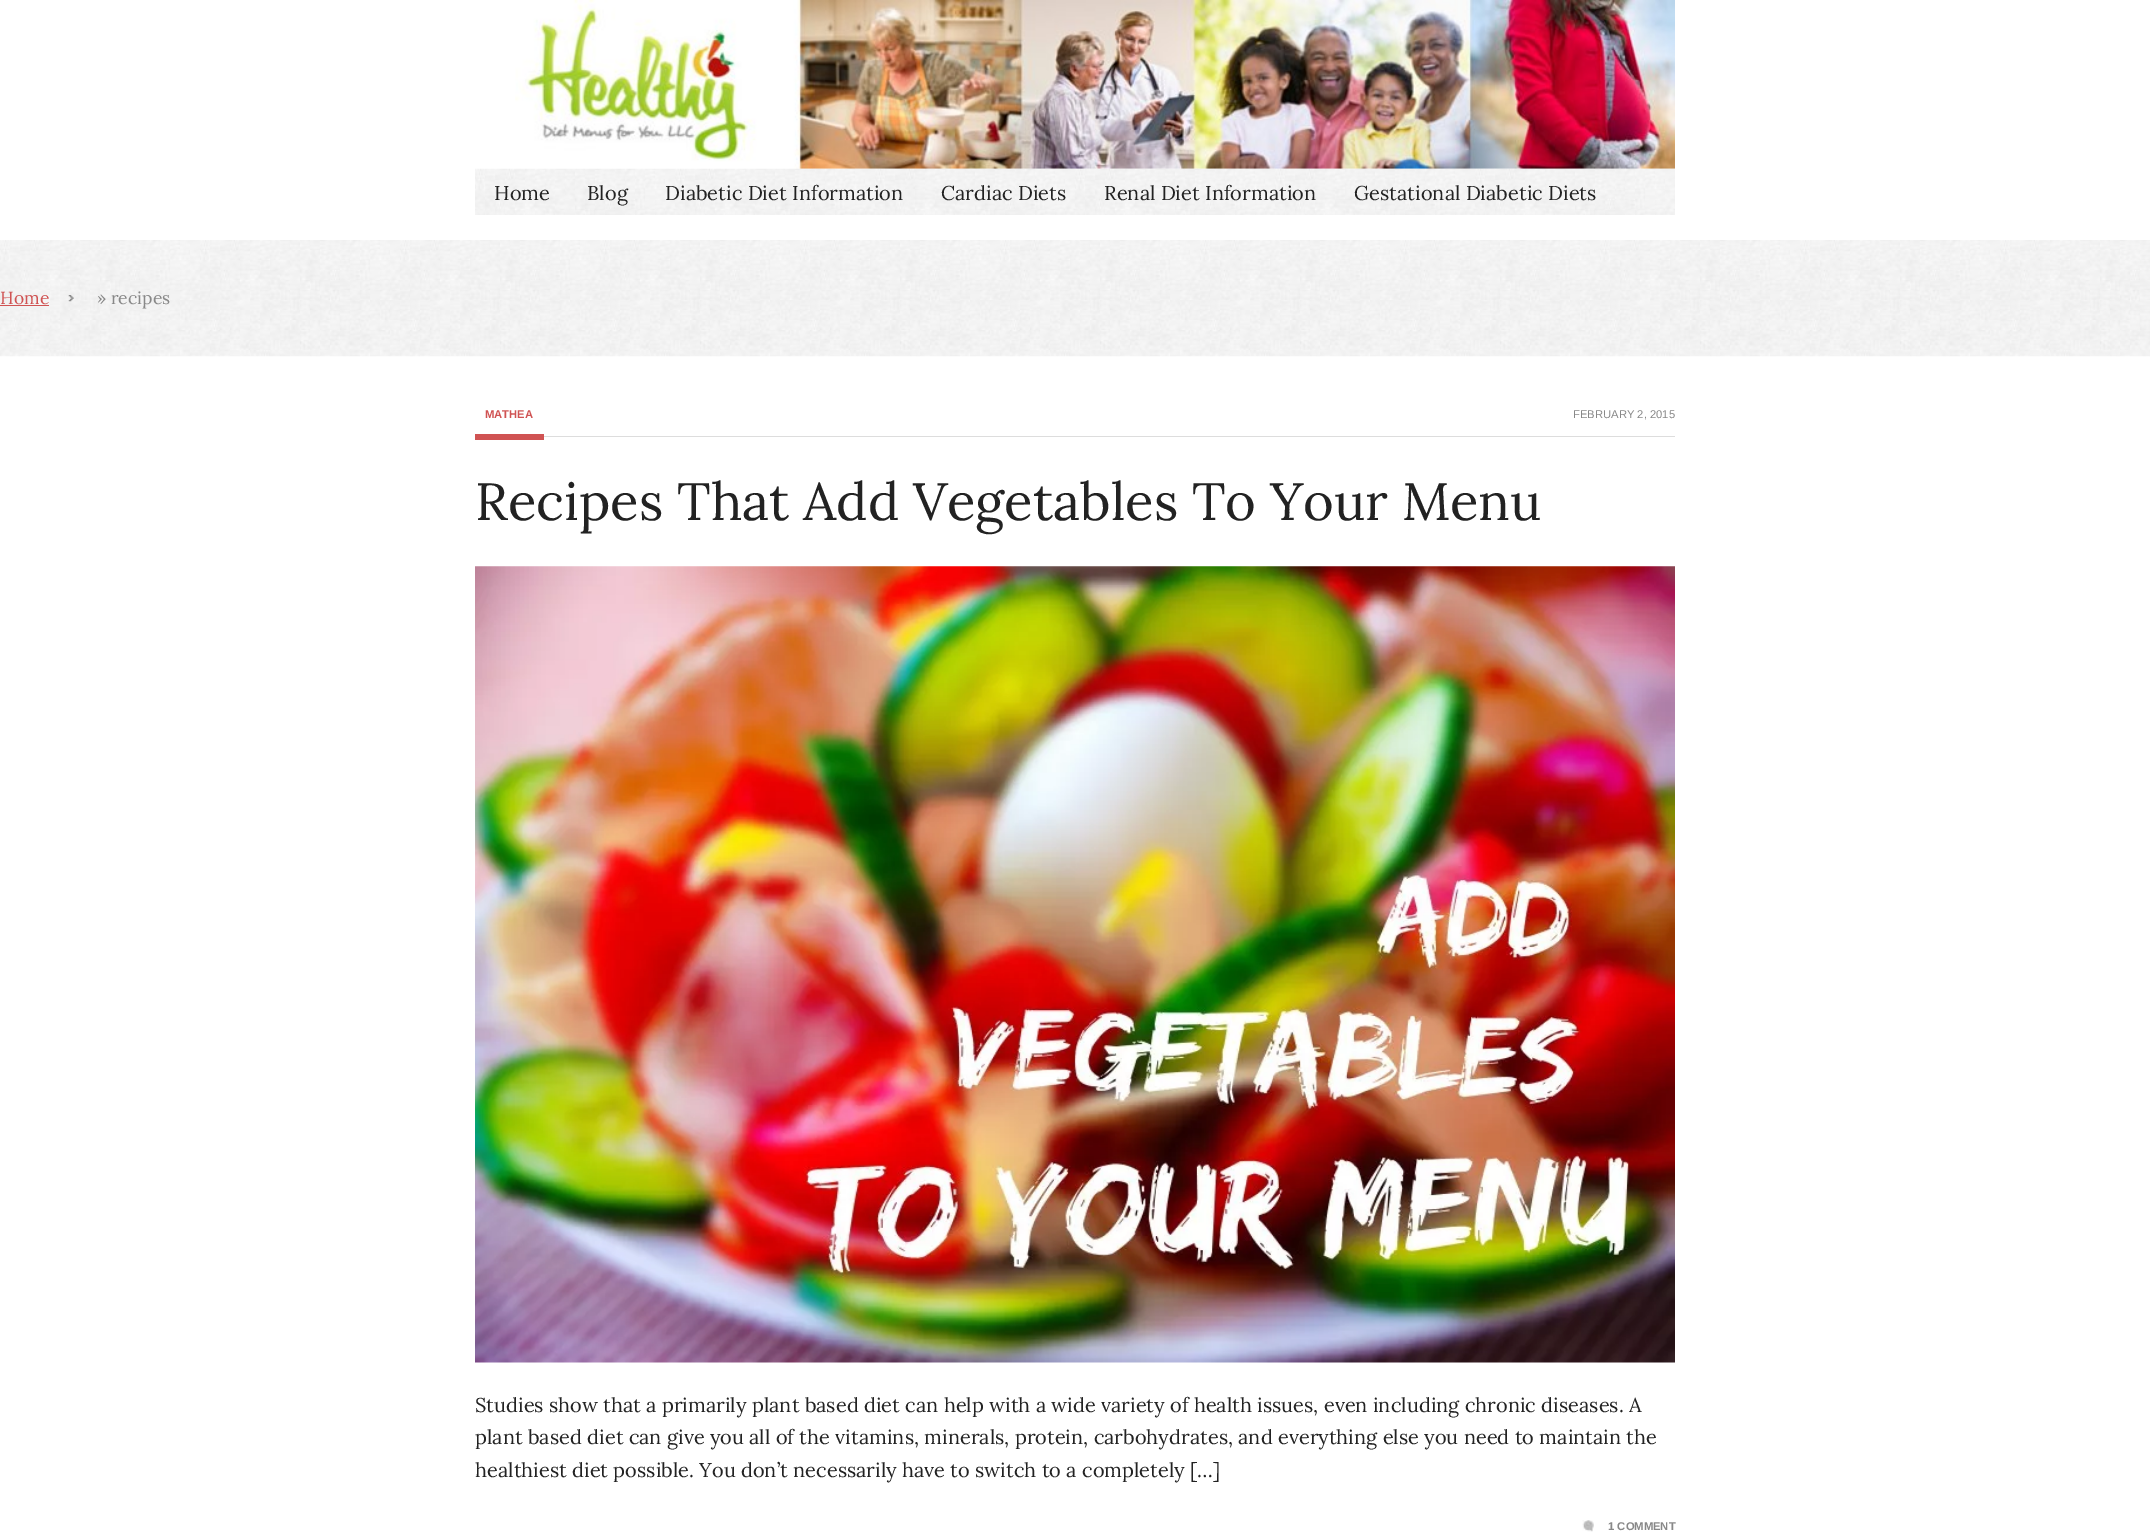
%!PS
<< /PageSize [2150 1532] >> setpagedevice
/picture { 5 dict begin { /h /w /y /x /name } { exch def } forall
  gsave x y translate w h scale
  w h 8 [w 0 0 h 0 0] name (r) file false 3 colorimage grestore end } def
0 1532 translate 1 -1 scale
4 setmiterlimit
1 setgray
0 0 2150 1532 rectfill
(img1.rgb) 515 0 1160 169 picture
(img2.rgb) 475 168 1200 47 picture
/Lora-Regular [20 0 0 -20 0 0] selectfont
0.133 setgray
494 200 moveto (Home) show
587 200 moveto (Blog) show
665 200 moveto (Diabetic Diet Information) show
941 200 moveto (Cardiac Diets) show
1104 200 moveto (Renal Diet Information) show
1354 200 moveto (Gestational Diabetic Diets) show
(img3.rgb) 0 240 2150 117 picture
/Lora-Regular [17.5 0 0 -17.5 0 0] selectfont
0.816 0.325 0.325 setrgbcolor
0 304 moveto (Home) show
0 305 49 1 rectfill
(img4.rgb) 68 295 6 7 picture
0.533 setgray
97 304 moveto (» recipes) show
0.867 setgray
544 436 1131 1 rectfill
/LiberationSans-Bold [11.25 0 0 -11.25 0 0] selectfont
0.816 0.325 0.325 setrgbcolor
485 418 moveto (MATHEA) show
475 434 69 6 rectfill
/LiberationSans-Regular [11.25 0 0 -11.25 0 0] selectfont
0.533 setgray
1573 418 moveto (FEBRUARY 2, 2015) show
/Lora-Regular [52.5 0 0 -52.5 0 0] selectfont
0.133 setgray
475 520 moveto (Recipes That Add Vegetables To Your Menu) show
(img5.rgb) 475 566 1200 797 picture
/Lora-Regular [20 0 0 -20 0 0] selectfont
475 1412 moveto (Studies show that a primarily plant based diet can help with a wide variety of health issues, even including chronic diseases. A) show
475 1444 moveto (plant based diet can give you all of the vitamins, minerals, protein, carbohydrates, and everything else you need to maintain the) show
475 1477 moveto (healthiest diet possible. You don’t necessarily have to switch to a completely […]) show
(img6.rgb) 1582 1520 12 12 picture
/LiberationSans-Bold [11.25 0 0 -11.25 0 0] selectfont
0.533 setgray
1608 1530 moveto (1 COMMENT) show
showpage
